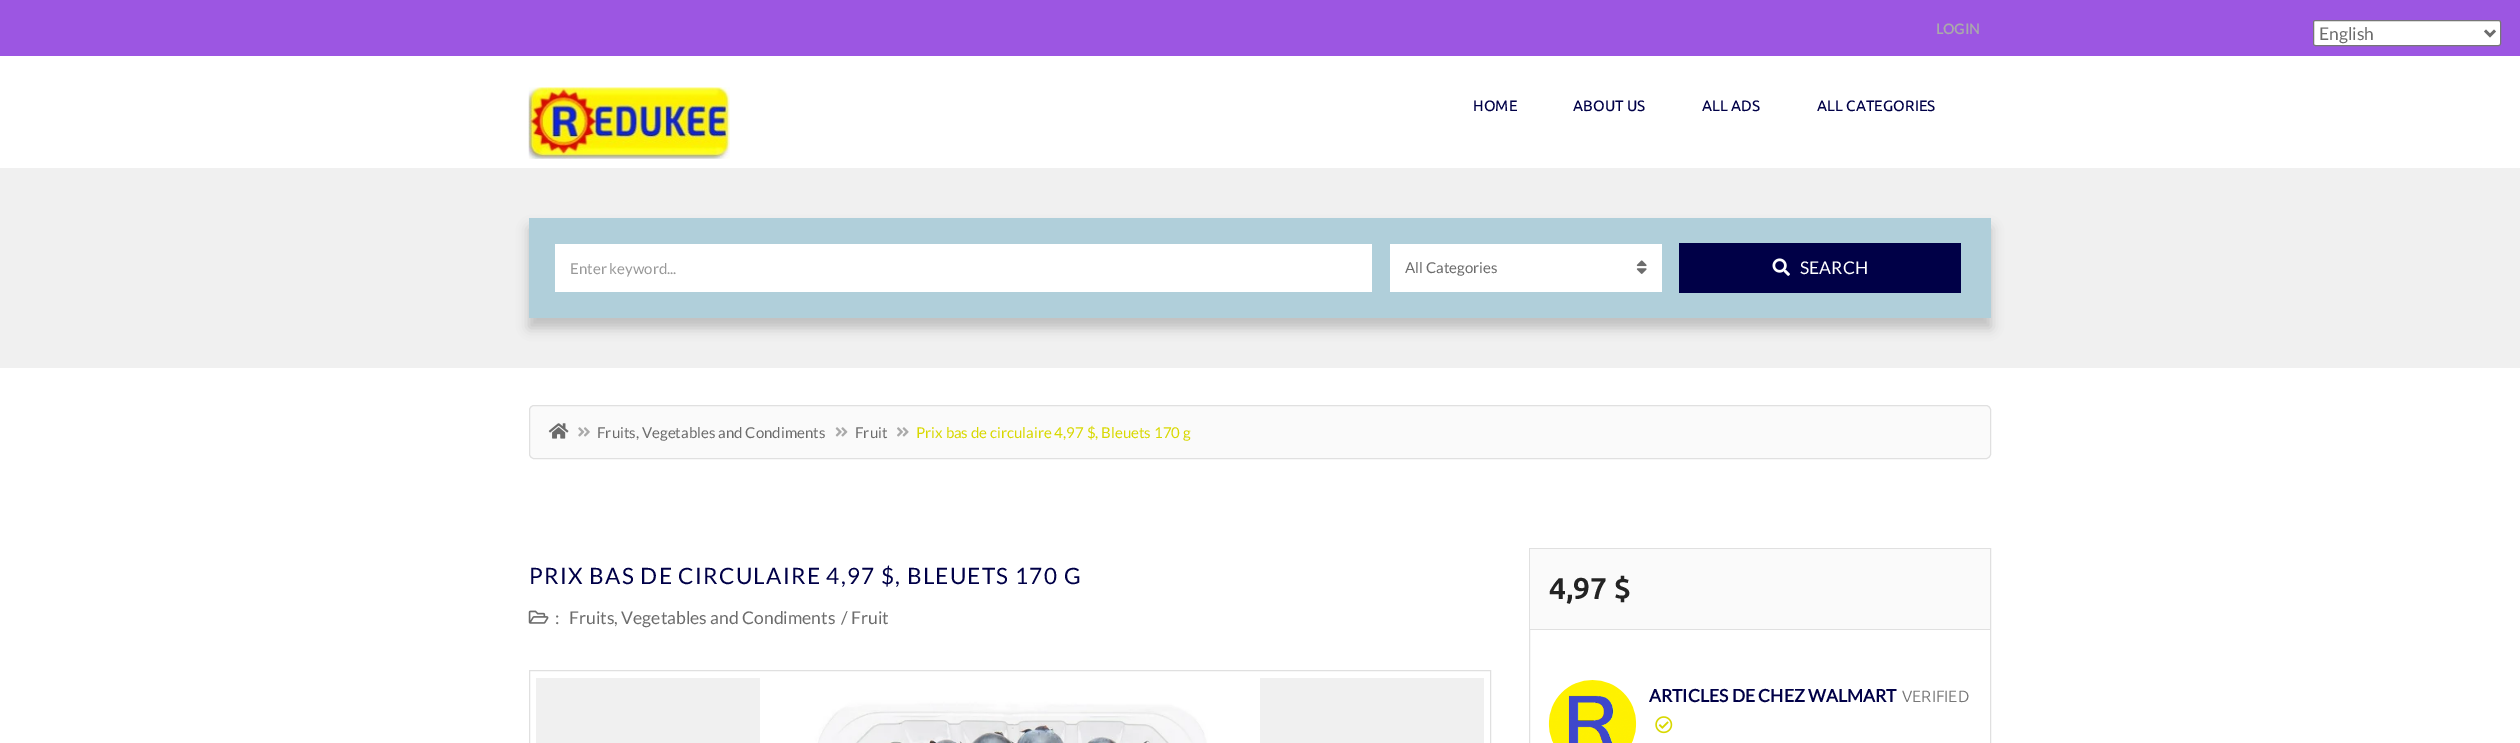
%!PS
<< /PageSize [2520 743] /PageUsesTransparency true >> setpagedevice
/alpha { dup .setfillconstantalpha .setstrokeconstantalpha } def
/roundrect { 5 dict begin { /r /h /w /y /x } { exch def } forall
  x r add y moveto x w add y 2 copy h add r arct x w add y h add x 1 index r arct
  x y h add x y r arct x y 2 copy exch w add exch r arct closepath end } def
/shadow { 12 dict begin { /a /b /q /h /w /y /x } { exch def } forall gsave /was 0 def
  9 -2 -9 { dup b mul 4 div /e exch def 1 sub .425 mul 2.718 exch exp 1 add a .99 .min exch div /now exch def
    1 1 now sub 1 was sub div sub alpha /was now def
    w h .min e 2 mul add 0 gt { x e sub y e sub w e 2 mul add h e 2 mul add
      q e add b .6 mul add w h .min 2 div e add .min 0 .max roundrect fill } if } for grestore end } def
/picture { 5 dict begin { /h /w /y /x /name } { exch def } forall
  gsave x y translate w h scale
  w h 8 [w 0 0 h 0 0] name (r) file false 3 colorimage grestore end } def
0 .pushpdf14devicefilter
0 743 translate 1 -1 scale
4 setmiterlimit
1 setgray
0 0 2520 743 rectfill
0.612 0.337 0.886 setrgbcolor
0 0 2520 56 rectfill
/Lato-Bold [14 0 0 -14 0 0] selectfont
0.667 setgray
1936 34 moveto (LOGIN) show
gsave
newpath 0 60 moveto 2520 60 lineto 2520 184 lineto 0 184 lineto closepath 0 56 moveto 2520 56 lineto 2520 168 lineto 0 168 lineto closepath eoclip newpath
0 setgray
13 79 2495 86 0 6 0.2 shadow
grestore
(img1.rgb) 528 87 202 72 picture
/Ubuntu-Medium [15 0 0 -15 0 0] selectfont
0 0 0.278 setrgbcolor
1473 111 moveto (HOME) show
1573 111 moveto (ABOUT US) show
1702 111 moveto (ALL ADS) show
1817 111 moveto (ALL CATEGORIES) show
1 setgray
2313.5 20.5 187 25 2 roundrect gsave fill grestore
0.463 setgray
stroke
0.424 setgray
2.5 setlinewidth
newpath 2485 30.5 moveto 2490 35.5 lineto 2495 30.5 lineto stroke
/Lato-Regular [17.5 0 0 -17.5 0 0] selectfont
2319 40 moveto (English) show
0.941 setgray
0 168 2520 200 rectfill
0 setgray
529 228 1462 100 0 6 0.2 shadow
0.69 0.812 0.855 setrgbcolor
529 218 1462 100 rectfill
1 setgray
555 244 817 48 rectfill
/Lato-Regular [15 0 0 -15 0 0] selectfont
0.6 setgray
570 274 moveto (Enter keyword...) show
1 setgray
1390 244 272 48 rectfill
0.424 setgray
1405 273 moveto (All Categories) show
(img2.rgb) 1636 260 11 14 picture
0 0 0.278 setrgbcolor
1679 243 282 50 rectfill
(img3.rgb) 1772 258 18 18 picture
/Lato-Regular [17.5 0 0 -17.5 0 0] selectfont
1 setgray
1800 274 moveto (SEARCH) show
0.98 setgray
529.5 405.5 1461 53 4.5 roundrect gsave fill grestore
0.878 setgray
1 setlinewidth
stroke
(img4.rgb) 548 423 21 16 picture
(img5.rgb) 578 427 12 10 picture
/Lato-Regular [15 0 0 -15 0 0] selectfont
0.424 setgray
597 438 moveto (Fruits, Vegetables and Condiments) show
(img6.rgb) 835 427 13 10 picture
855 438 moveto (Fruit) show
(img7.rgb) 897 427 12 10 picture
0.847 0.847 0 setrgbcolor
916 438 moveto (Prix bas de circulaire 4,97 $, Bleuets 170 g) show
/Lato-Regular [22.5 0 0 -22.5 0 0] selectfont
0 0 0.278 setrgbcolor
529 584 moveto 1.25 0 (PRIX BAS DE CIRCULAIRE 4,97 $, BLEUETS 170 G) ashow
(img8.rgb) 528 610 21 14 picture
/Lato-Regular [17.5 0 0 -17.5 0 0] selectfont
0.424 setgray
555 624 moveto (:) show
569 624 moveto (Fruits, Vegetables and Condiments) show
841 624 moveto (/ Fruit) show
0.878 setgray
529.5 670.5 961 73 rectstroke
0.941 setgray
536 678 948 65 rectfill
(img9.rgb) 760 678 500 65 picture
0.878 setgray
1529.5 548.5 461 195 rectstroke
0.98 setgray
1530 549 460 80 rectfill
0.878 setgray
1530 629 460 1 rectfill
/Ubuntu-Bold [30 0 0 -30 0 0] selectfont
0.137 setgray
1549 599 moveto (4,97 $) show
(img10.rgb) 1548 680 89 63 picture
/Lato-Bold [17.5 0 0 -17.5 0 0] selectfont
0 0 0.278 setrgbcolor
1649 702 moveto (ARTICLES DE CHEZ WALMART) show
/Ubuntu-Regular [16.25 0 0 -16.25 0 0] selectfont
0.467 setgray
1902 702 moveto (VERIFIED) show
(img11.rgb) 1655 716 18 18 picture
.poppdf14devicefilter showpage
